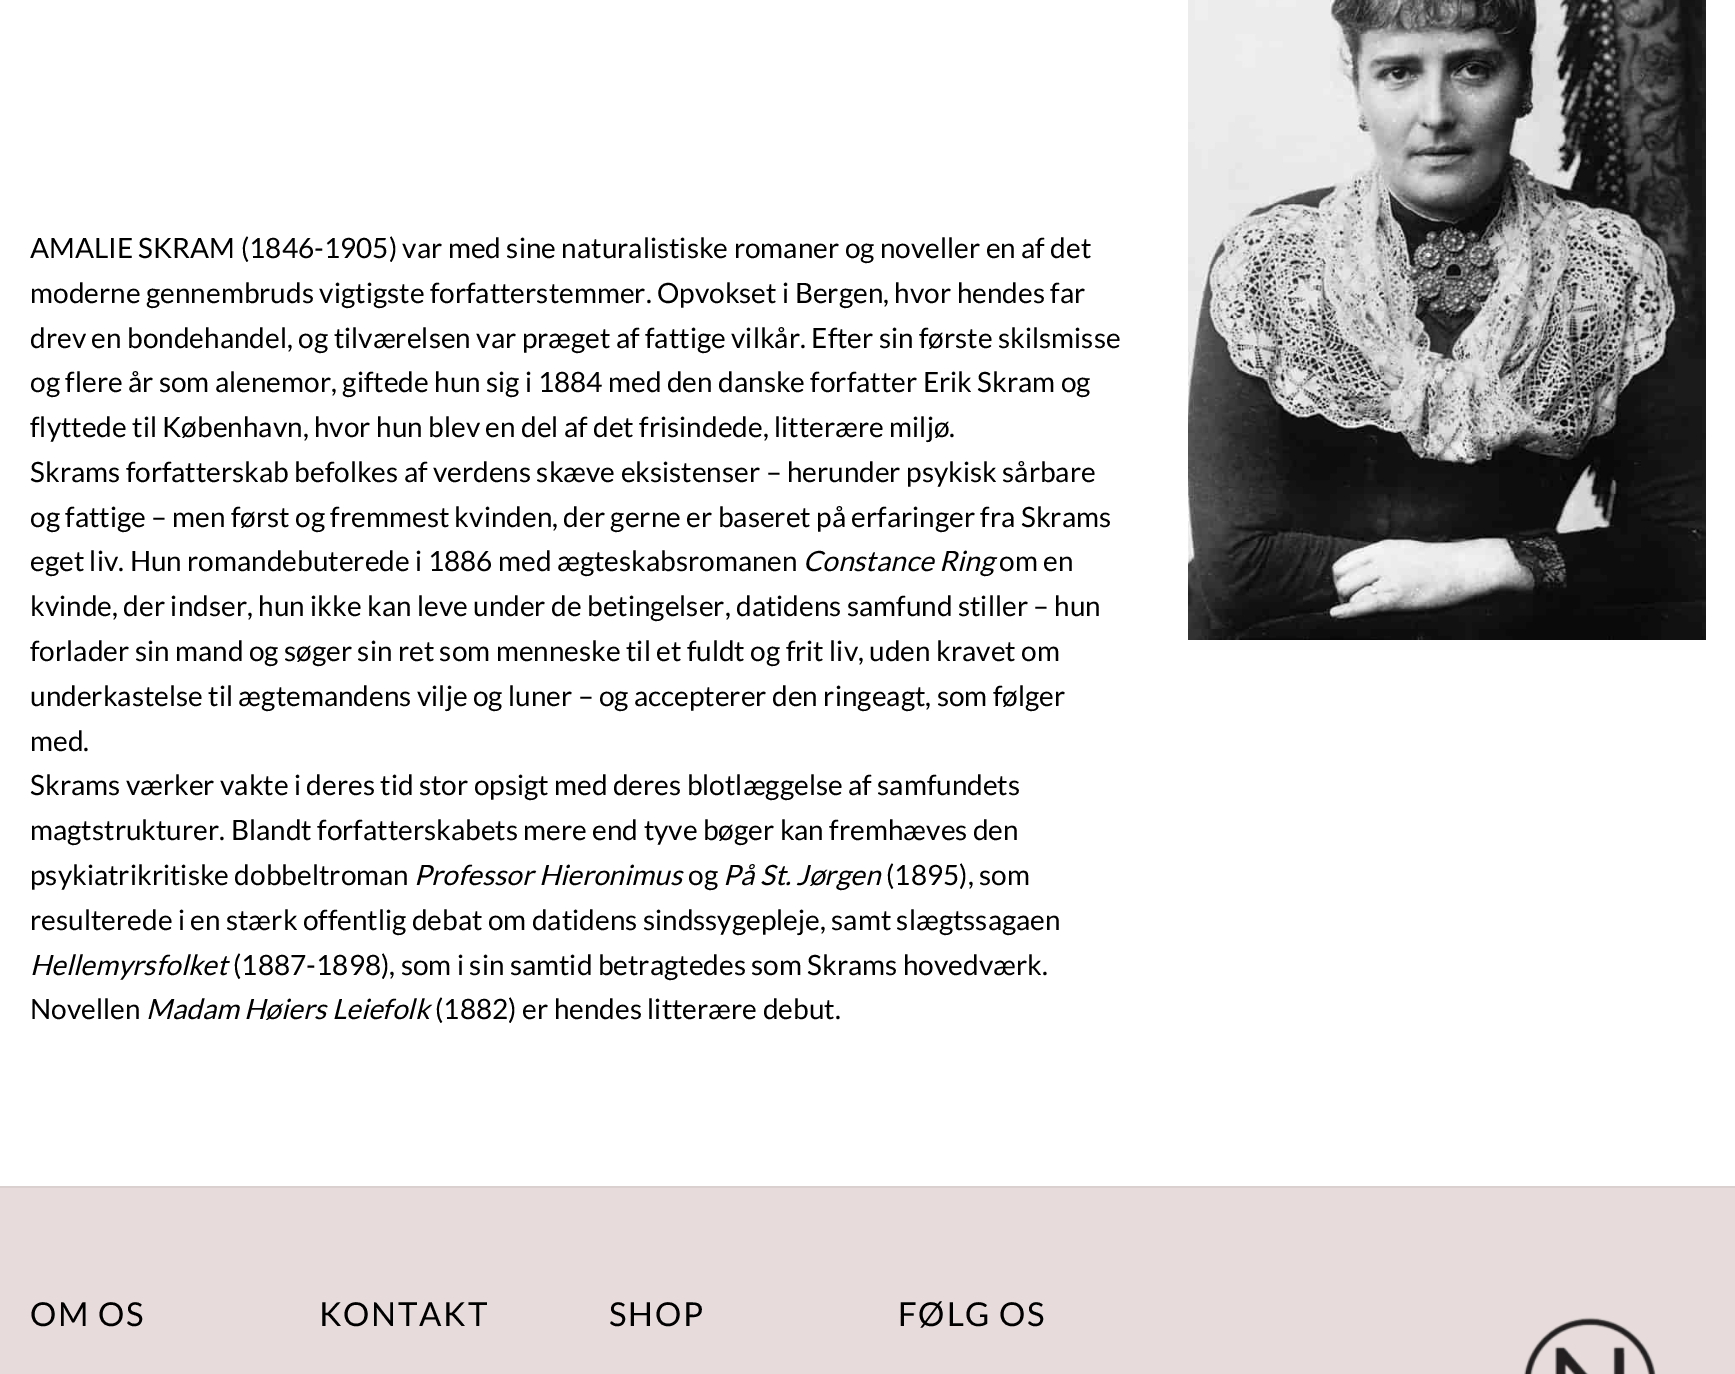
%!PS
<< /PageSize [1735 1374] >> setpagedevice
/picture { 5 dict begin { /h /w /y /x /name } { exch def } forall
  gsave x y translate w h scale
  w h 8 [w 0 0 h 0 0] name (r) file false 3 colorimage grestore end } def
0 1374 translate 1 -1 scale
4 setmiterlimit
1 setgray
0 0 1735 1374 rectfill
/Lato-Regular [28 0 0 -28 0 0] selectfont
0 setgray
30 258 moveto (AMALIE SKRAM \(1846-1905\) var med sine naturalistiske romaner og noveller en af det) show
30 303 moveto (moderne gennembruds vigtigste forfatterstemmer. Opvokset i Bergen, hvor hendes far) show
30 348 moveto (drev en bondehandel, og tilværelsen var præget af fattige vilkår. Efter sin første skilsmisse) show
30 392 moveto (og flere år som alenemor, giftede hun sig i 1884 med den danske forfatter Erik Skram og) show
30 437 moveto (flyttede til København, hvor hun blev en del af det frisindede, litterære miljø.) show
30 482 moveto (Skrams forfatterskab befolkes af verdens skæve eksistenser – herunder psykisk sårbare) show
30 527 moveto (og fattige – men først og fremmest kvinden, der gerne er baseret på erfaringer fra Skrams) show
30 571 moveto (eget liv. Hun romandebuterede i 1886 med ægteskabsromanen) show
/Lato-Italic [28 0 0 -28 0 0] selectfont
803 571 moveto (Constance Ring) show
/Lato-Regular [28 0 0 -28 0 0] selectfont
999 571 moveto (om en) show
30 616 moveto (kvinde, der indser, hun ikke kan leve under de betingelser, datidens samfund stiller – hun) show
30 661 moveto (forlader sin mand og søger sin ret som menneske til et fuldt og frit liv, uden kravet om) show
30 706 moveto (underkastelse til ægtemandens vilje og luner – og accepterer den ringeagt, som følger) show
30 751 moveto (med.) show
30 795 moveto (Skrams værker vakte i deres tid stor opsigt med deres blotlæggelse af samfundets) show
30 840 moveto (magtstrukturer. Blandt forfatterskabets mere end tyve bøger kan fremhæves den) show
30 885 moveto (psykiatrikritiske dobbeltroman) show
/Lato-Italic [28 0 0 -28 0 0] selectfont
414 885 moveto (Professor Hieronimus) show
/Lato-Regular [28 0 0 -28 0 0] selectfont
688 885 moveto (og) show
/Lato-Italic [28 0 0 -28 0 0] selectfont
723 885 moveto (På St. Jørgen) show
/Lato-Regular [28 0 0 -28 0 0] selectfont
886 885 moveto (\(1895\), som) show
30 930 moveto (resulterede i en stærk offentlig debat om datidens sindssygepleje, samt slægtssagaen) show
/Lato-Italic [28 0 0 -28 0 0] selectfont
30 975 moveto (Hellemyrsfolket) show
/Lato-Regular [28 0 0 -28 0 0] selectfont
233 975 moveto (\(1887-1898\), som i sin samtid betragtedes som Skrams hovedværk.) show
30 1019 moveto (Novellen) show
/Lato-Italic [28 0 0 -28 0 0] selectfont
146 1019 moveto (Madam Høiers Leiefolk) show
/Lato-Regular [28 0 0 -28 0 0] selectfont
435 1019 moveto (\(1882\) er hendes litterære debut.) show
(img1.rgb) 1188 0 518 640 picture
0.906 0.859 0.859 setrgbcolor
0 1188 1735 186 rectfill
0.859 0.816 0.816 setrgbcolor
0 1186 1735 2 rectfill
/Lato-Regular [33 0 0 -33 0 0] selectfont
0 setgray
30 1326 moveto 1.75 0 (OM OS) ashow
319 1326 moveto 1.75 0 (KONTAKT) ashow
609 1326 moveto 1.75 0 (SHOP) ashow
898 1326 moveto 1.75 0 (FØLG OS) ashow
(img2.rgb) 1524 1317 132 57 picture
showpage
